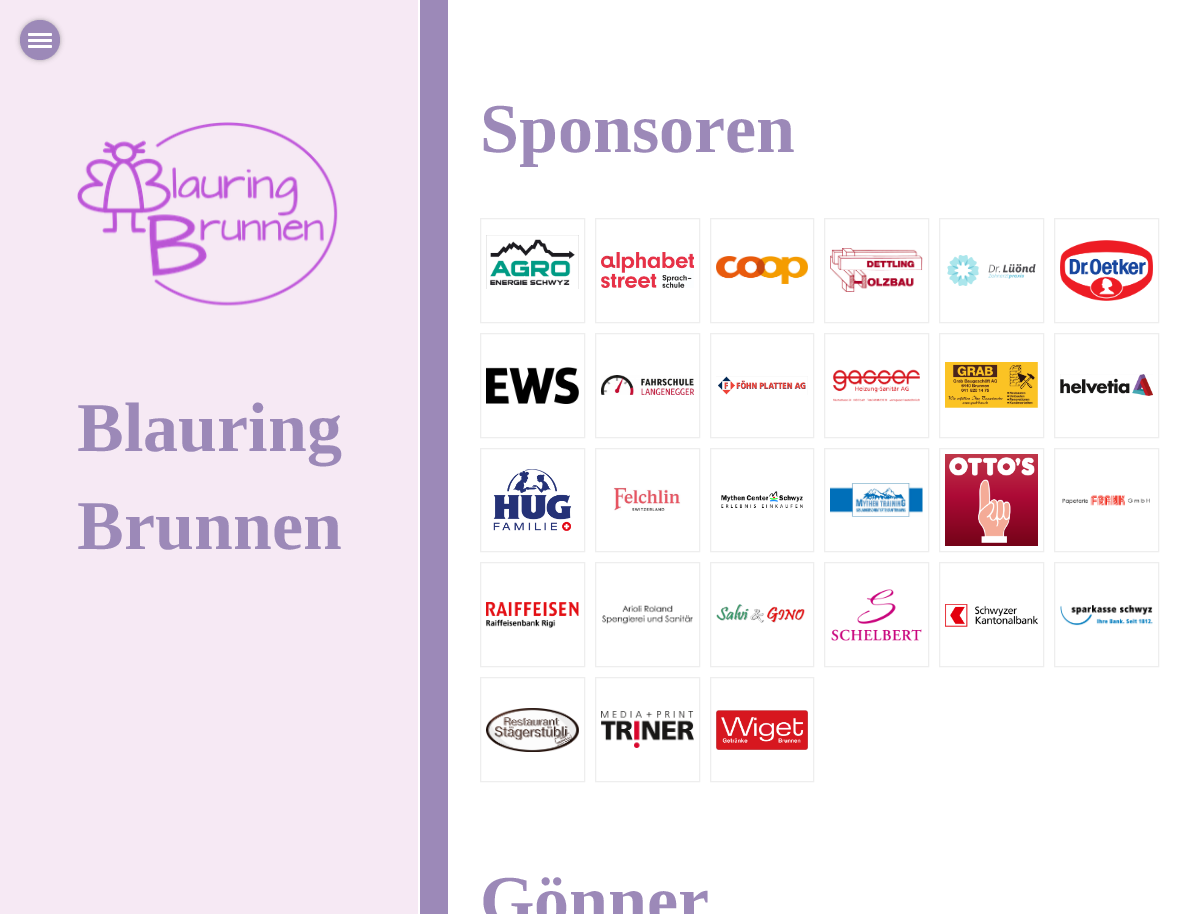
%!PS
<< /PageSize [1191 914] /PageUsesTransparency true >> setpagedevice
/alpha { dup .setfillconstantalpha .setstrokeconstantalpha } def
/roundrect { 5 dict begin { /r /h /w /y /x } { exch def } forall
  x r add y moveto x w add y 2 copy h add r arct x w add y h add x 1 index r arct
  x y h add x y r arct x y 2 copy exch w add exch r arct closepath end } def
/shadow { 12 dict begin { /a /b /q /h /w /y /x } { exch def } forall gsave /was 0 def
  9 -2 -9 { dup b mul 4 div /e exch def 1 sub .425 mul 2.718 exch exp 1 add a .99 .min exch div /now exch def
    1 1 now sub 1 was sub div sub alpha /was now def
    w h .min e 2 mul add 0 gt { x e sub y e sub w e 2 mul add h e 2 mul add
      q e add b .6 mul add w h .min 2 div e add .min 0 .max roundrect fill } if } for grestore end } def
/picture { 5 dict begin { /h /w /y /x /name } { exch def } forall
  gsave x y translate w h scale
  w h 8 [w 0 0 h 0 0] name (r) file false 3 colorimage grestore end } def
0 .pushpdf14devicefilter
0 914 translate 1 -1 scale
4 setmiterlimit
0.965 0.914 0.957 setrgbcolor
0 0 1191 914 rectfill
0 setgray
20 20 40 40 20 2.5 0.3 shadow
0.612 0.537 0.722 setrgbcolor
newpath 40 40 20 0 360 arc closepath fill
1 setgray
28 33 24 3 1.5 roundrect fill
28 39 24 3 1.5 roundrect fill
28 45 24 3 1.5 roundrect fill
(img1.rgb) 77 122 261 184 picture
/LiberationSerif-Bold [70 0 0 -70 0 0] selectfont
0.612 0.537 0.722 setrgbcolor
77 451 moveto (Blauring) show
77 549 moveto (Brunnen) show
420 0 28 914 rectfill
1 setgray
418 0 2 914 rectfill
448 0 743 914 rectfill
0.612 0.537 0.722 setrgbcolor
480 152 moveto (Sponsoren) show
0.933 setgray
480.5 218.5 104 104 rectstroke
(img2.rgb) 486 235 93 54 picture
595.5 218.5 104 104 rectstroke
(img3.rgb) 601 252 93 36 picture
710.5 218.5 103 104 rectstroke
(img4.rgb) 716 256 92 28 picture
824.5 218.5 104 104 rectstroke
(img5.rgb) 830 248 93 44 picture
939.5 218.5 104 104 rectstroke
(img6.rgb) 947 255 89 31 picture
1054.5 218.5 104 104 rectstroke
(img7.rgb) 1060 240 93 61 picture
480.5 333.5 104 104 rectstroke
(img8.rgb) 486 367 93 37 picture
595.5 333.5 104 104 rectstroke
(img9.rgb) 601 375 93 20 picture
710.5 333.5 103 104 rectstroke
(img10.rgb) 716 376 92 19 picture
824.5 333.5 104 104 rectstroke
(img11.rgb) 832 369 88 33 picture
939.5 333.5 104 104 rectstroke
(img12.rgb) 945 362 93 46 picture
1054.5 333.5 104 104 rectstroke
(img13.rgb) 1060 374 93 22 picture
480.5 448.5 104 103 rectstroke
(img14.rgb) 493 469 79 62 picture
595.5 448.5 104 103 rectstroke
(img15.rgb) 613 487 68 24 picture
710.5 448.5 103 103 rectstroke
(img16.rgb) 721 491 82 17 picture
824.5 448.5 104 103 rectstroke
(img17.rgb) 830 483 93 34 picture
939.5 448.5 104 103 rectstroke
(img18.rgb) 945 454 93 92 picture
1054.5 448.5 104 103 rectstroke
(img19.rgb) 1062 494 88 12 picture
480.5 562.5 104 104 rectstroke
(img20.rgb) 486 602 93 26 picture
595.5 562.5 104 104 rectstroke
(img21.rgb) 602 605 91 20 picture
710.5 562.5 103 104 rectstroke
(img22.rgb) 716 604 89 19 picture
824.5 562.5 104 104 rectstroke
(img23.rgb) 831 589 91 52 picture
939.5 562.5 104 104 rectstroke
(img24.rgb) 945 604 93 23 picture
1054.5 562.5 104 104 rectstroke
(img25.rgb) 1060 605 93 21 picture
480.5 677.5 104 104 rectstroke
(img26.rgb) 486 708 93 44 picture
595.5 677.5 104 104 rectstroke
(img27.rgb) 601 711 93 37 picture
710.5 677.5 103 104 rectstroke
(img28.rgb) 716 710 92 40 picture
0.612 0.537 0.722 setrgbcolor
480 924 moveto (Gönner) show
.poppdf14devicefilter showpage
